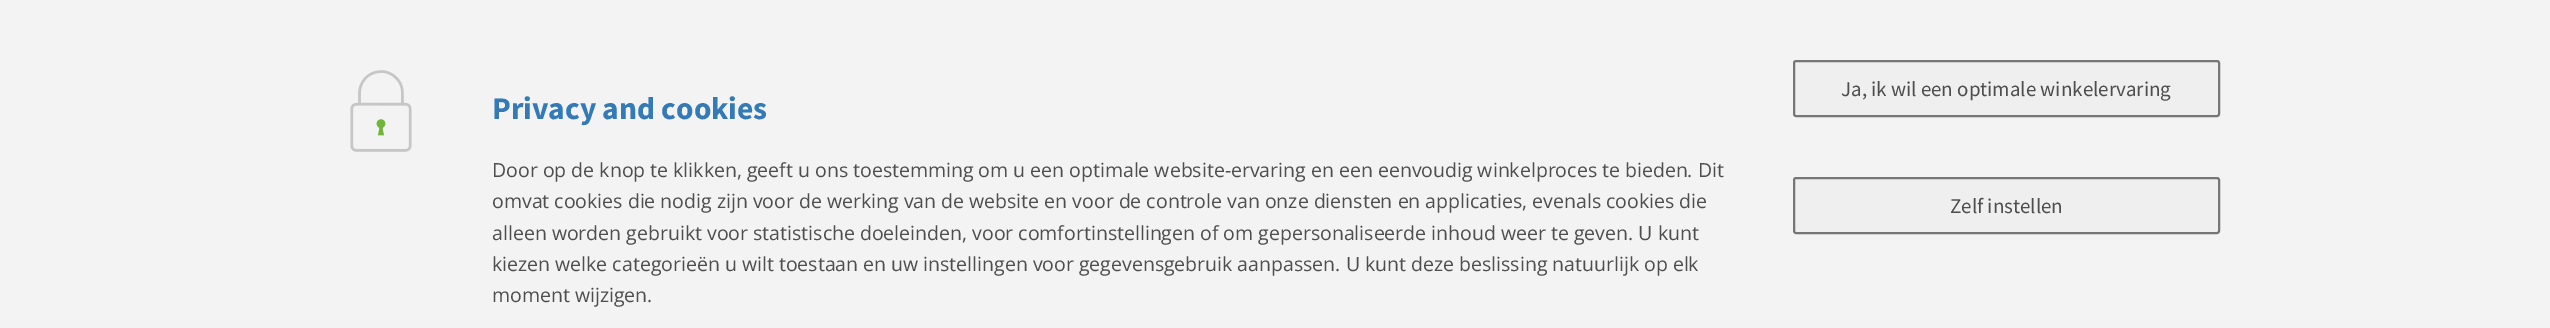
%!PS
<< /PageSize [2550 328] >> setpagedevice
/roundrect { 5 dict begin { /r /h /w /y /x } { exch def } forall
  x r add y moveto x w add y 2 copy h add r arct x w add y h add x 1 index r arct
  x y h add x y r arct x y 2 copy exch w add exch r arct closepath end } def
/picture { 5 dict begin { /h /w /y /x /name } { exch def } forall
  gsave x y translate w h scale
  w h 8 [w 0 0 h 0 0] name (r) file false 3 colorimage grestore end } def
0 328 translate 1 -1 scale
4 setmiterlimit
0.953 setgray
0 0 2550 328 rectfill
(img1.rgb) 350 70 62 82 picture
/SourceSansPro-Bold [31.5 0 0 -31.5 0 0] selectfont
0.2 0.478 0.718 setrgbcolor
492 119 moveto (Privacy and cookies) show
/OpenSans-Regular [19.5 0 0 -19.5 0 0] selectfont
0.306 setgray
492 177 moveto (Door op de knop te klikken, geeft u ons toestemming om u een optimale website-ervaring en een eenvoudig winkelproces te bieden. Dit) show
492 208 moveto (omvat cookies die nodig zijn voor de werking van de website en voor de controle van onze diensten en applicaties, evenals cookies die) show
492 240 moveto (alleen worden gebruikt voor statistische doeleinden, voor comfortinstellingen of om gepersonaliseerde inhoud weer te geven. U kunt) show
492 271 moveto (kiezen welke categorieën u wilt toestaan en uw instellingen voor gegevensgebruik aanpassen. U kunt deze beslissing natuurlijk op elk) show
492 302 moveto (moment wijzigen.) show
0.937 setgray
1794 61 425 55 2 roundrect gsave fill grestore
0.463 setgray
2 setlinewidth
stroke
/SourceSansPro-Regular [21 0 0 -21 0 0] selectfont
0.306 setgray
1841 96 moveto (Ja, ik wil een optimale winkelervaring) show
0.937 setgray
1794 178 425 55 2 roundrect gsave fill grestore
0.463 setgray
stroke
0.306 setgray
1950 213 moveto (Zelf instellen) show
showpage
